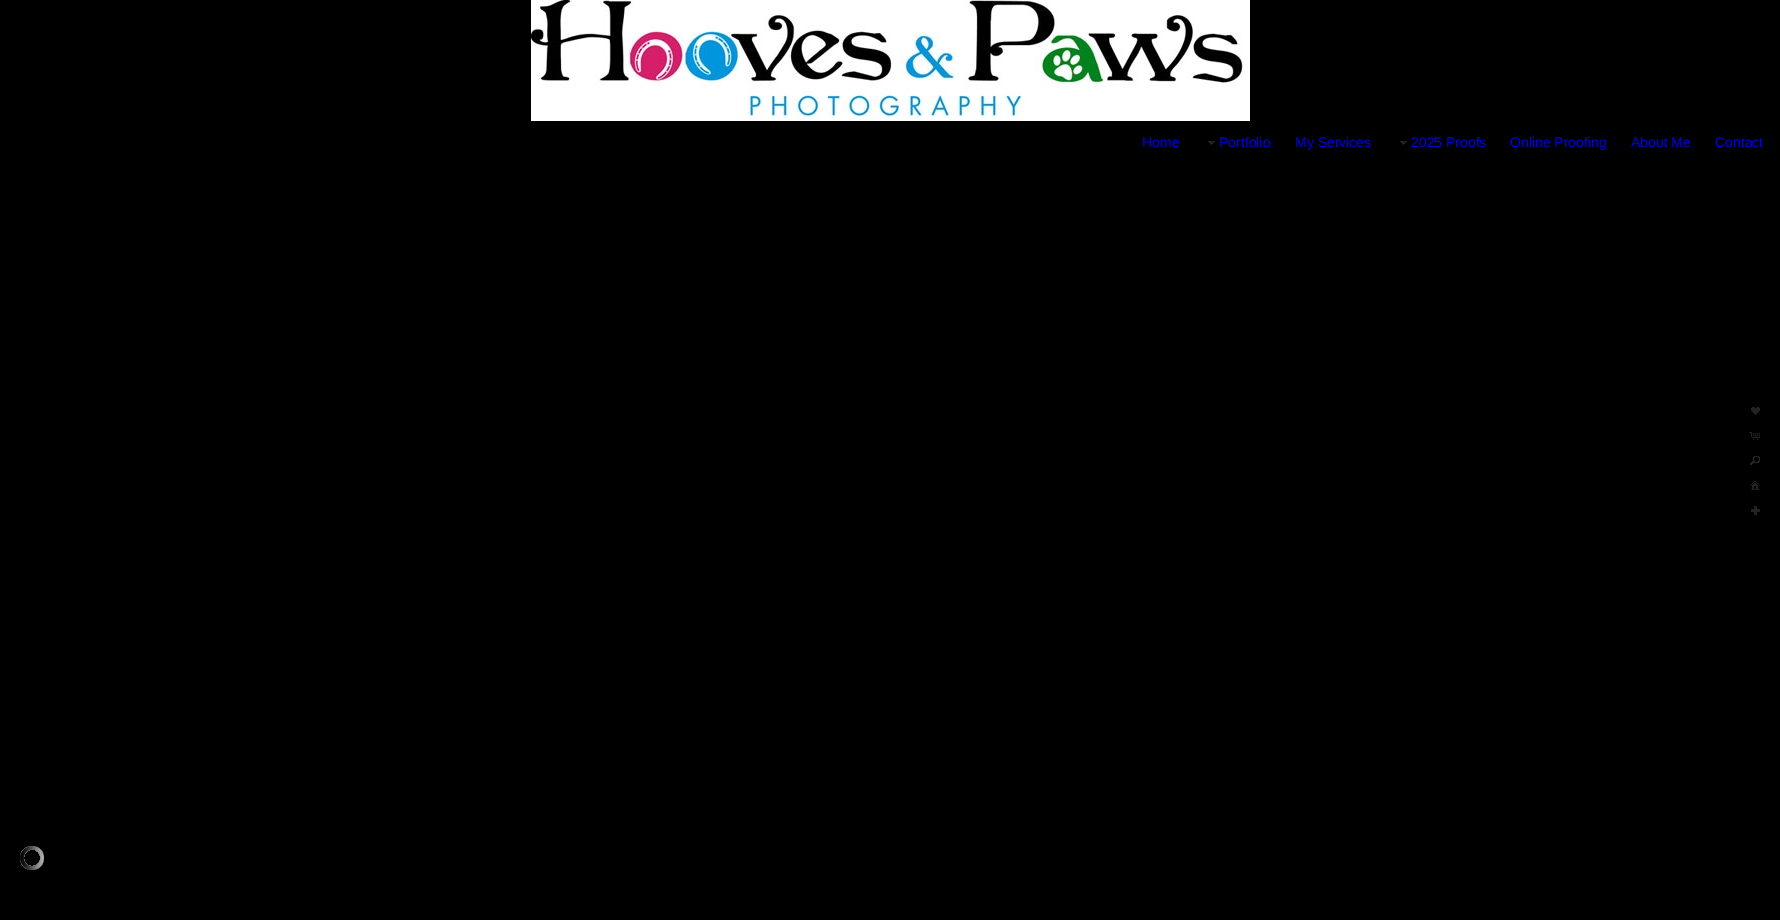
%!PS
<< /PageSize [1780 920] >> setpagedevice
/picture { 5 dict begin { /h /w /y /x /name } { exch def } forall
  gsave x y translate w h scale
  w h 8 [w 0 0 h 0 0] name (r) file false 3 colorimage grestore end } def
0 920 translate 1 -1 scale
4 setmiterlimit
0 setgray
0 0 1780 920 rectfill
(img1.rgb) 531 0 719 121 picture
/LiberationSans-Regular [14 0 0 -14 0 0] selectfont
0 0 0.933 setrgbcolor
1142 147 moveto (Home) show
(img2.rgb) 1208 141 7 4 picture
1219 147 moveto (Portfolio) show
1295 147 moveto (My Services) show
(img2.rgb) 1400 141 7 4 picture
1411 147 moveto (2025 Proofs) show
1510 147 moveto (Online Proofing) show
1631 147 moveto (About Me) show
1715 147 moveto (Contact) show
(img3.rgb) 1751 407 9 8 picture
(img4.rgb) 1749 432 11 8 picture
(img5.rgb) 1750 456 10 9 picture
(img6.rgb) 1750 481 10 9 picture
(img7.rgb) 1751 506 9 9 picture
(img8.rgb) 20 846 24 24 picture
showpage
